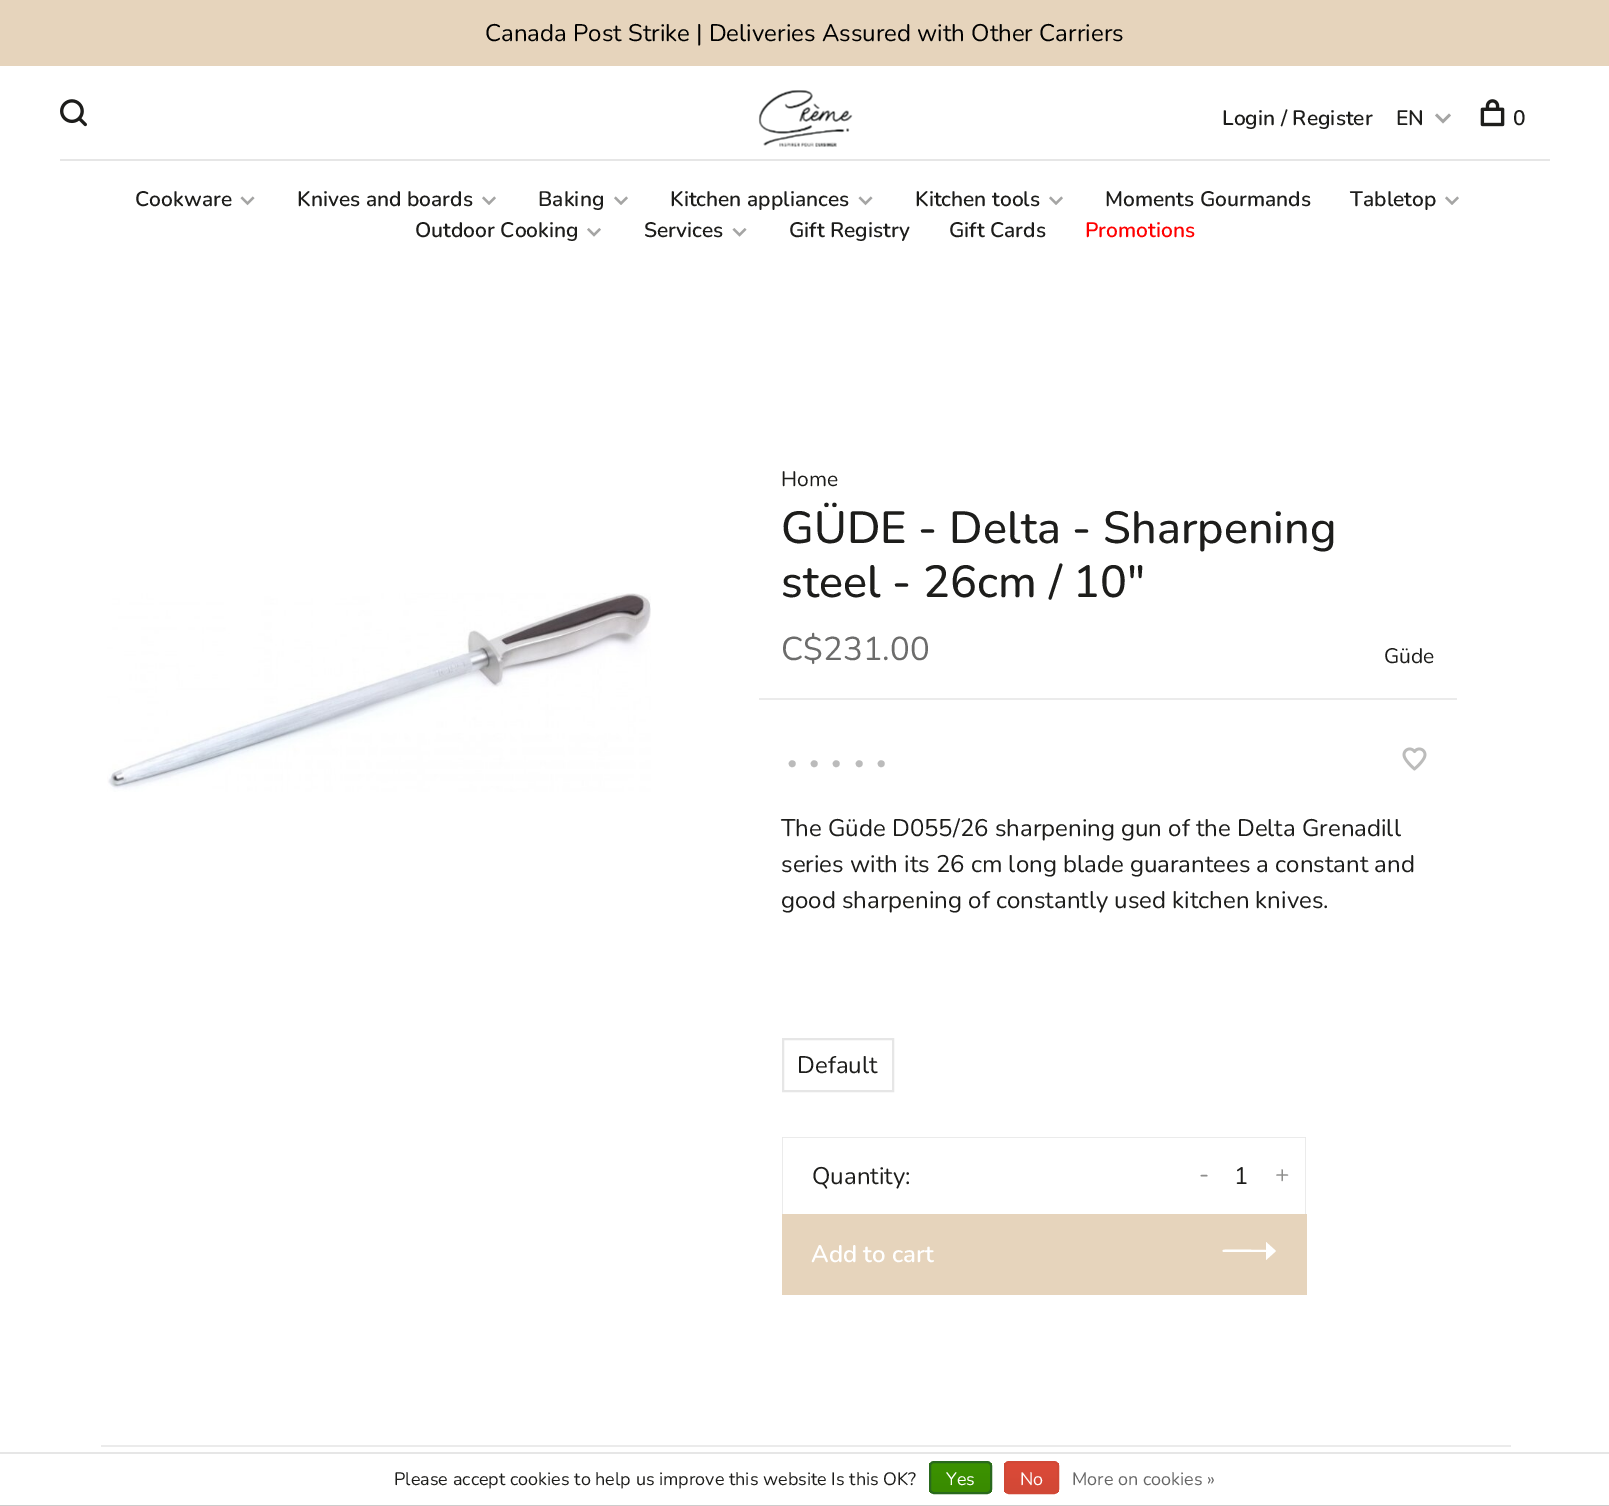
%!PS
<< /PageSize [1609 1506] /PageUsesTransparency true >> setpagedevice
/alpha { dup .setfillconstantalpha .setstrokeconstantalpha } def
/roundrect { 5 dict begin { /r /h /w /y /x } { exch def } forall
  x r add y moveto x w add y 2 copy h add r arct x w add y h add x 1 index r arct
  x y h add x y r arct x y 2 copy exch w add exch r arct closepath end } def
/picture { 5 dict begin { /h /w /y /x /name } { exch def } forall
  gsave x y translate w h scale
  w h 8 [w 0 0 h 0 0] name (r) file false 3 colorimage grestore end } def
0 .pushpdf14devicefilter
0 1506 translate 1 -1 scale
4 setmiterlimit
1 setgray
0 0 1609 1506 rectfill
0.902 0.831 0.737 setrgbcolor
0 0 1609 66 rectfill
/Nunito-Regular [24 0 0 -24 0 0] selectfont
0 setgray
485 41 moveto (Canada Post Strike | Deliveries Assured with Other Carriers) show
(img1.rgb) 60 99 27 28 picture
(img2.rgb) 758 90 95 57 picture
/Nunito-SemiBold [21 0 0 -21 0 0] selectfont
0.114 0.114 0.106 setrgbcolor
1222 125 moveto (Login / Register) show
1396 125 moveto (EN) show
(img3.rgb) 1435 113 16 11 picture
(img4.rgb) 1480 99 25 28 picture
1513 125 moveto (0) show
0.902 setgray
60 159 1490 2 rectfill
0.114 0.114 0.106 setrgbcolor
135 206 moveto (Cookware) show
(img5.rgb) 240 196 15 10 picture
297 206 moveto (Knives and boards) show
(img6.rgb) 482 196 14 9 picture
538 206 moveto (Baking) show
(img6.rgb) 614 196 14 9 picture
670 206 moveto (Kitchen appliances) show
(img5.rgb) 858 196 15 10 picture
915 206 moveto (Kitchen tools) show
(img6.rgb) 1049 196 14 9 picture
1105 206 moveto (Moments Gourmands) show
1350 206 moveto (Tabletop) show
(img6.rgb) 1445 196 14 9 picture
415 237 moveto (Outdoor Cooking) show
(img7.rgb) 587 228 14 9 picture
644 237 moveto (Services) show
(img8.rgb) 732 228 15 9 picture
789 237 moveto (Gift Registry) show
949 237 moveto (Gift Cards) show
1 0 0 setrgbcolor
1085 237 moveto (Promotions) show
0.922 setgray
101 1445 1410 2 rectfill
(img9.rgb) 107 593 544 199 picture
/Nunito-Regular [21 0 0 -21 0 0] selectfont
0.114 0.114 0.106 setrgbcolor
781 486 moveto (Home) show
/Nunito-Medium [45 0 0 -45 0 0] selectfont
781 543 moveto (GÜDE - Delta - Sharpening) show
781 597 moveto (steel - 26cm / 10") show
0.922 setgray
759 698 698 2 rectfill
/Nunito-Regular [33 0 0 -33 0 0] selectfont
0.424 0.424 0.42 setrgbcolor
781 660 moveto (C$231.00) show
/Nunito-Regular [21 0 0 -21 0 0] selectfont
0.114 0.114 0.106 setrgbcolor
1384 663 moveto (Güde) show
/Nunito-Regular [20 0 0 -20 0 0] selectfont
0.733 setgray
787 769 moveto (•) show
809 769 moveto (•) show
831 769 moveto (•) show
854 769 moveto (•) show
876 769 moveto (•) show
(img10.rgb) 1402 747 25 24 picture
/Nunito-Regular [24 0 0 -24 0 0] selectfont
0.114 0.114 0.106 setrgbcolor
781 836 moveto (The Güde D055/26 sharpening gun of the Delta Grenadill) show
781 872 moveto (series with its 26 cm long blade guarantees a constant and) show
781 908 moveto (good sharpening of constantly used kitchen knives.) show
0.902 setgray
2 setlinewidth
783 1039 110 52 rectstroke
0.114 0.114 0.106 setrgbcolor
797 1073 moveto (Default) show
0.922 setgray
newpath 782 1137 moveto 1306 1137 lineto 1305 1138 lineto 783 1138 lineto closepath fill
0.08 alpha
0 setgray
newpath 1306 1137 moveto 1306 1214 lineto 1305 1214 lineto 1305 1138 lineto closepath fill
newpath 782 1214 moveto 782 1137 lineto 783 1138 lineto 783 1214 lineto closepath fill
1 alpha
0.114 0.114 0.106 setrgbcolor
812 1184 moveto (Quantity:) show
1234 1184 moveto (1) show
0.557 0.557 0.553 setrgbcolor
1199 1182 moveto (-) show
1275 1182 moveto (+) show
0.902 0.831 0.737 setrgbcolor
782 1214 525 81 rectfill
/Nunito-SemiBold [24 0 0 -24 0 0] selectfont
1 setgray
811 1262 moveto (Add to cart) show
newpath 1266 1250 moveto 1261 1250 1224 1249 1223 1250 curveto 1222 1251 1223 1252 1224 1252 curveto 1266 1252 lineto 1266 1260 lineto 1276 1251 lineto 1266 1242 lineto closepath fill
0.902 setgray
0 1452 1609 2 rectfill
0.8 setgray
0 1505 1609 1 rectfill
/Nunito-Regular [18 0 0 -18 0 0] selectfont
0.114 0.114 0.106 setrgbcolor
394 1485 moveto (Please accept cookies to help us improve this website Is this OK?) show
gsave
929 1461 63 33 5 roundrect clip newpath
gsave newpath 929 1463 moveto 992 1463 lineto 992 1493 lineto 929 1493 lineto closepath clip newpath
<< /ShadingType 2 /ColorSpace /DeviceRGB /Coords [960 1463 960 1493] /Extend [true true] /Function << /FunctionType 2 /Domain [0 1] /C0 [0.235 0.576 0] /C1 [0.224 0.541 0] /N 1 >> >> shfill grestore
grestore
0.161 0.412 0.114 setrgbcolor
930 1462 61 31 4 roundrect stroke
1 setgray
946 1485 moveto (Yes) show
gsave
1004 1461 55 33 5 roundrect clip newpath
gsave newpath 1004 1463 moveto 1059 1463 lineto 1059 1493 lineto 1004 1493 lineto closepath clip newpath
<< /ShadingType 2 /ColorSpace /DeviceRGB /Coords [1031 1463 1031 1493] /Extend [true true] /Function << /FunctionType 2 /Domain [0 1] /C0 [0.863 0.29 0.22] /C1 [0.82 0.282 0.212] /N 1 >> >> shfill grestore
grestore
0.82 0.282 0.212 setrgbcolor
1005 1462 53 31 4 roundrect stroke
1 setgray
1020 1485 moveto (No) show
0.4 setgray
1072 1485 moveto (More on cookies ») show
.poppdf14devicefilter showpage
